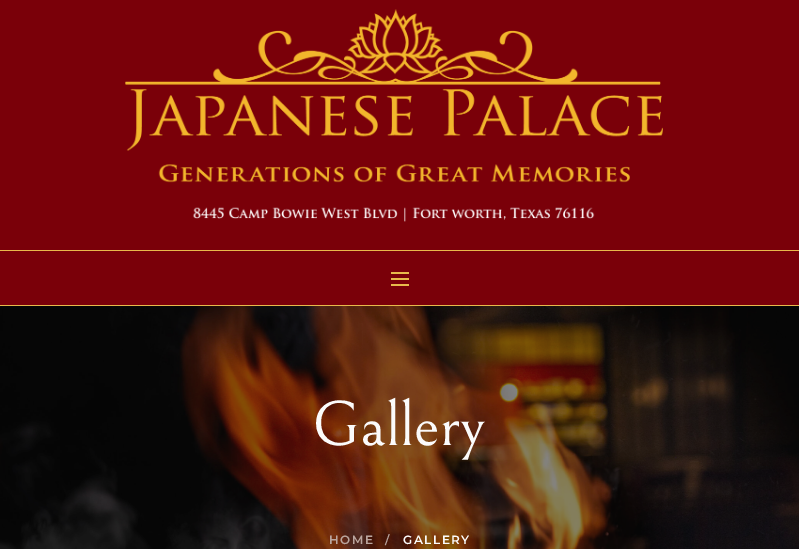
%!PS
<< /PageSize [799 549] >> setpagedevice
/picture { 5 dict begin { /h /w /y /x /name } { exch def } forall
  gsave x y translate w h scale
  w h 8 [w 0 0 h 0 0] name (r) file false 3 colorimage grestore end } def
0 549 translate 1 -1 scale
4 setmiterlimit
1 setgray
0 0 799 549 rectfill
0.478 0 0.035 setrgbcolor
0 0 799 250 rectfill
(img1.rgb) 125 9 538 213 picture
0 251 799 54 rectfill
0.91 0.725 0.298 setrgbcolor
0 250 799 1 rectfill
0 305 799 1 rectfill
391 272 18 2 rectfill
391 278 18 2 rectfill
391 284 18 2 rectfill
(img2.rgb) 0 306 799 243 picture
/Bellefair-Regular [64 0 0 -64 0 0] selectfont
0.984 setgray
312 445 moveto (Gallery) show
/Montserrat-SemiBold [12 0 0 -12 0 0] selectfont
0.733 0.651 0.624 setrgbcolor
329 544 moveto 1.5 0 (HOME) ashow
0.706 0.627 0.604 setrgbcolor
385 544 moveto 1.5 0 (/) ashow
0.984 setgray
403 544 moveto 1.5 0 (GALLERY) ashow
showpage
